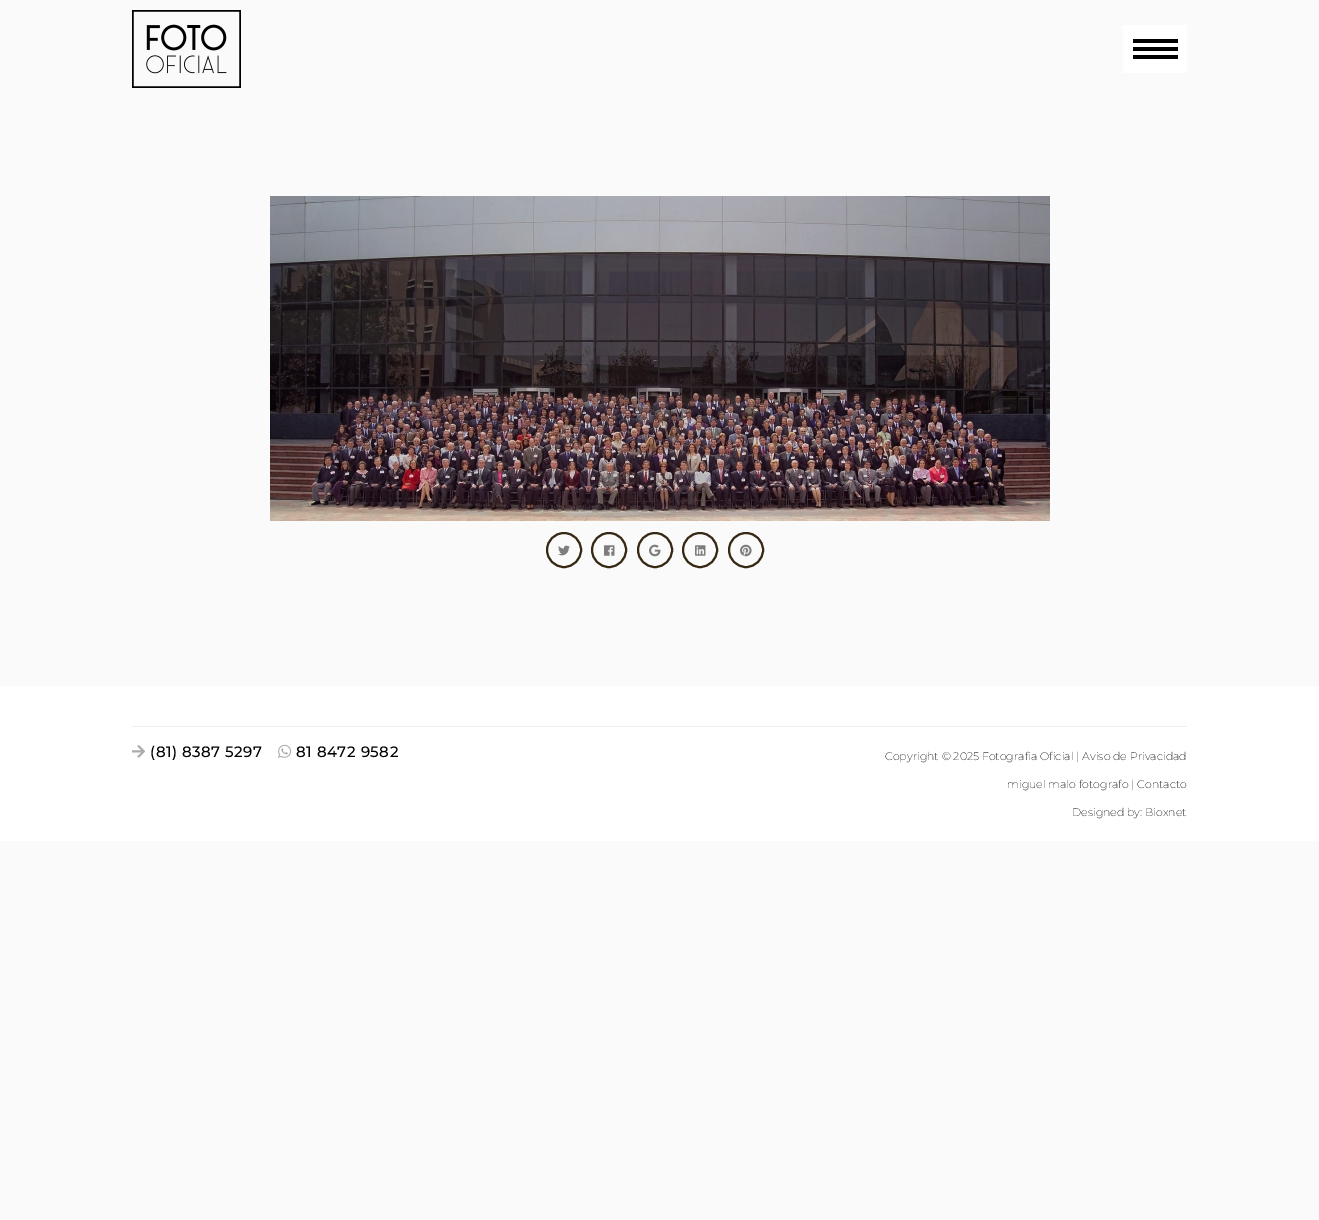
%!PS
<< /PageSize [1319 1220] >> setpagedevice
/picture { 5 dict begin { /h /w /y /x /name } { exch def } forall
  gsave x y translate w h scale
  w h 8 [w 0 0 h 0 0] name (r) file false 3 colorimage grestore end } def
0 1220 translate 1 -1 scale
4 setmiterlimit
0.98 setgray
0 0 1319 1220 rectfill
(img1.rgb) 132 10 109 78 picture
1 setgray
1123 25 64 48 rectfill
0 setgray
1133 39 45 4 rectfill
1133 47 45 4 rectfill
1133 55 45 4 rectfill
(img2.rgb) 270 196 780 325 picture
0.216 0.157 0.075 setrgbcolor
2 setlinewidth
newpath 564 550 17 0 360 arc closepath stroke
(img3.rgb) 558 545 12 11 picture
newpath 609 550 17 0 360 arc closepath stroke
(img4.rgb) 604 545 11 11 picture
newpath 655 550 17 0 360 arc closepath stroke
(img5.rgb) 649 544 12 13 picture
newpath 700 550 17 0 360 arc closepath stroke
(img6.rgb) 695 545 11 11 picture
newpath 746 550 17 0 360 arc closepath stroke
(img7.rgb) 740 544 12 13 picture
1 setgray
0 686 1319 155 rectfill
0.937 setgray
132 726 1055 1 rectfill
(img8.rgb) 132 745 13 13 picture
/Montserrat-Medium [15 0 0 -15 0 0] selectfont
0 setgray
150 757 moveto 0.5 0 (\(81\) 8387 5297) ashow
(img9.rgb) 278 744 14 14 picture
296 757 moveto 0.5 0 (81 8472 9582) ashow
/Montserrat-ExtraLight [11 0 0 -11 0 0] selectfont
885 760 moveto (Copyright © 2025 Fotografia Oficial | Aviso de Privacidad) show
1007 788 moveto (miguel malo fotografo | Contacto) show
1072 816 moveto (Designed by: Bioxnet) show
showpage
